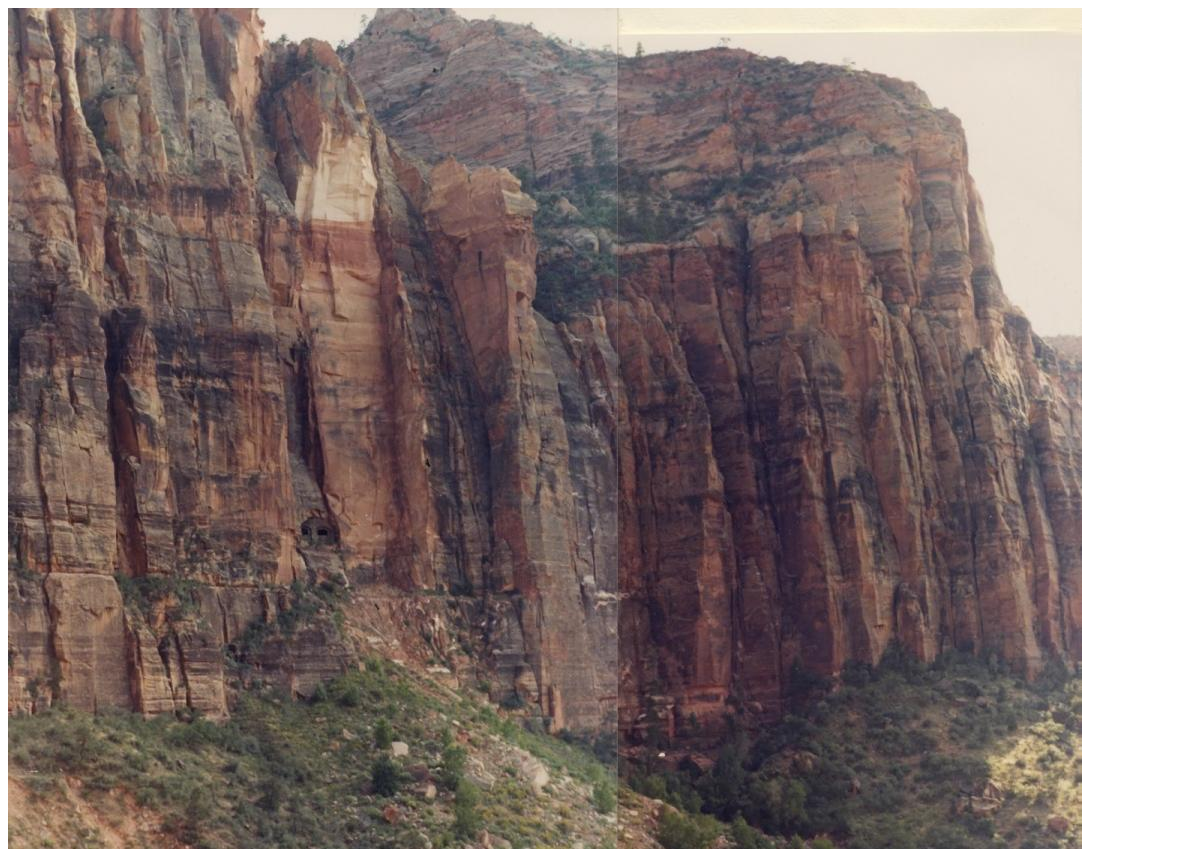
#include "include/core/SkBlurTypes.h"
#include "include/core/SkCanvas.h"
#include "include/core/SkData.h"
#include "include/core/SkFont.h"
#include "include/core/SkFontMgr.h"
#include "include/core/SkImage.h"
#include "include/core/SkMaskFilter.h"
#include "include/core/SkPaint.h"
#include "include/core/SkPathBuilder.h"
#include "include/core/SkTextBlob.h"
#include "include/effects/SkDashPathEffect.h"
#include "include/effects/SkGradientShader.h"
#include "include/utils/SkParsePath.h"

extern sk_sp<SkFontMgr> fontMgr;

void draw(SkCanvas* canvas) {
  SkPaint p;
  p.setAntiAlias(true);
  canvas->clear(SK_ColorWHITE);
  canvas->drawImageRect(SkImages::DeferredFromEncodedData(SkData::MakeFromFileName("images/1.png")), SkRect::MakeLTRB(8, 8, 1082, 849), SkSamplingOptions());
}
